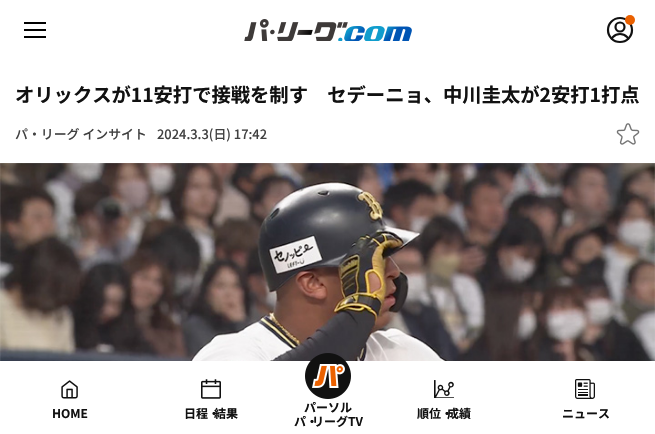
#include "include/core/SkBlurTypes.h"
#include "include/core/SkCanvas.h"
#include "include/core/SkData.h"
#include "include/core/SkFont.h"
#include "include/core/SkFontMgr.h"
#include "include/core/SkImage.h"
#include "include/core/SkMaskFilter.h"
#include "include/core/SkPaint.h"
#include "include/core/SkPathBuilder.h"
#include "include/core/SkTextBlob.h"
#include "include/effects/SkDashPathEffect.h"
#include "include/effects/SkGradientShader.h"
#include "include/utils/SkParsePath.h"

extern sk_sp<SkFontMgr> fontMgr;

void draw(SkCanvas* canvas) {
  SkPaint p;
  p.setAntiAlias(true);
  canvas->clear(SK_ColorWHITE);
  p.setColor(SK_ColorBLACK);
  canvas->drawRect(SkRect::MakeLTRB(24, 22, 46, 24), p);
  canvas->drawRect(SkRect::MakeLTRB(24, 29, 46, 31), p);
  canvas->drawRect(SkRect::MakeLTRB(24, 36, 46, 38), p);
  canvas->drawImageRect(SkImages::DeferredFromEncodedData(SkData::MakeFromFileName("images/1.png")), SkRect::MakeLTRB(244, 19, 412, 41), SkSamplingOptions());
  p.setStyle(SkPaint::kStroke_Style);
  p.setStrokeWidth(2.2f);
  p.setColor(SkColorSetRGB(17, 17, 17));
  canvas->drawCircle(620, 30, 12, p);
  canvas->drawCircle(620, 27, 4.5f, p);
  p.setStyle(SkPaint::kFill_Style);
  p.setColor(SkColorSetRGB(234, 96, 0));
  canvas->drawCircle(630, 20, 5, p);
  canvas->save();
  canvas->clipPath(SkPathBuilder().moveTo(620, 17).cubicTo(627, 17, 633, 23, 633, 30).cubicTo(633, 37, 627, 43, 620, 43).cubicTo(613, 43, 607, 37, 607, 30).cubicTo(607, 23, 613, 17, 620, 17).close().detach(), true);
  p.setStyle(SkPaint::kStroke_Style);
  p.setColor(SkColorSetRGB(17, 17, 17));
  canvas->drawCircle(620, 44, 10, p);
  canvas->restore();
  canvas->drawImageRect(SkImages::DeferredFromEncodedData(SkData::MakeFromFileName("images/2.png")), SkRect::MakeLTRB(616, 123, 640, 145), SkSamplingOptions());
  canvas->drawImageRect(SkImages::DeferredFromEncodedData(SkData::MakeFromFileName("images/3.png")), SkRect::MakeLTRB(0, 163, 655, 361), SkSamplingOptions());
  canvas->drawImageRect(SkImages::DeferredFromEncodedData(SkData::MakeFromFileName("images/4.png")), SkRect::MakeLTRB(61, 380, 78, 399), SkSamplingOptions());
  canvas->drawImageRect(SkImages::DeferredFromEncodedData(SkData::MakeFromFileName("images/5.png")), SkRect::MakeLTRB(201, 379, 221, 399), SkSamplingOptions());
  canvas->drawImageRect(SkImages::DeferredFromEncodedData(SkData::MakeFromFileName("images/6.png")), SkRect::MakeLTRB(305, 353, 351, 399), SkSamplingOptions());
  canvas->drawImageRect(SkImages::DeferredFromEncodedData(SkData::MakeFromFileName("images/7.png")), SkRect::MakeLTRB(434, 380, 454, 398), SkSamplingOptions());
  canvas->drawImageRect(SkImages::DeferredFromEncodedData(SkData::MakeFromFileName("images/8.png")), SkRect::MakeLTRB(575, 379, 595, 399), SkSamplingOptions());
  SkFont font1(fontMgr->matchFamilyStyle("Noto Sans JP", SkFontStyle::Bold()), 19.3f);
  font1.setSubpixel(true);
  p.setStyle(SkPaint::kFill_Style);
  canvas->drawString("オリックスが11安打で接戦を制す　セデーニョ、中川圭太が2安打1打点", 15, 102, font1, p);
  SkFont font2(fontMgr->matchFamilyStyle("Noto Sans JP", SkFontStyle(500, SkFontStyle::kNormal_Width, SkFontStyle::kUpright_Slant)), 12.9f);
  font2.setSubpixel(true);
  p.setColor(SkColorSetRGB(65, 65, 65));
  canvas->drawString("パ・リーグ インサイト", 15, 139, font2, p);
  canvas->drawString("2024.3.3(日) 17:42", 157, 139, font2, p);
  SkFont font3(fontMgr->matchFamilyStyle("Noto Sans JP", SkFontStyle::Bold()), 12);
  font3.setSubpixel(true);
  p.setColor(SkColorSetRGB(17, 17, 17));
  canvas->drawString("HOME", 52, 418, font3, p);
  canvas->drawString("日程・", 184, 418, font3, p);
  canvas->drawString("結果", 214, 418, font3, p);
  canvas->drawString("パーソル", 304, 412, font3, p);
  canvas->drawString("パ・", 294, 426, font3, p);
  canvas->drawString("リーグTV", 312, 426, font3, p);
  canvas->drawString("順位・", 417, 418, font3, p);
  canvas->drawString("成績", 447, 418, font3, p);
  canvas->drawString("ニュース", 562, 418, font3, p);
}
